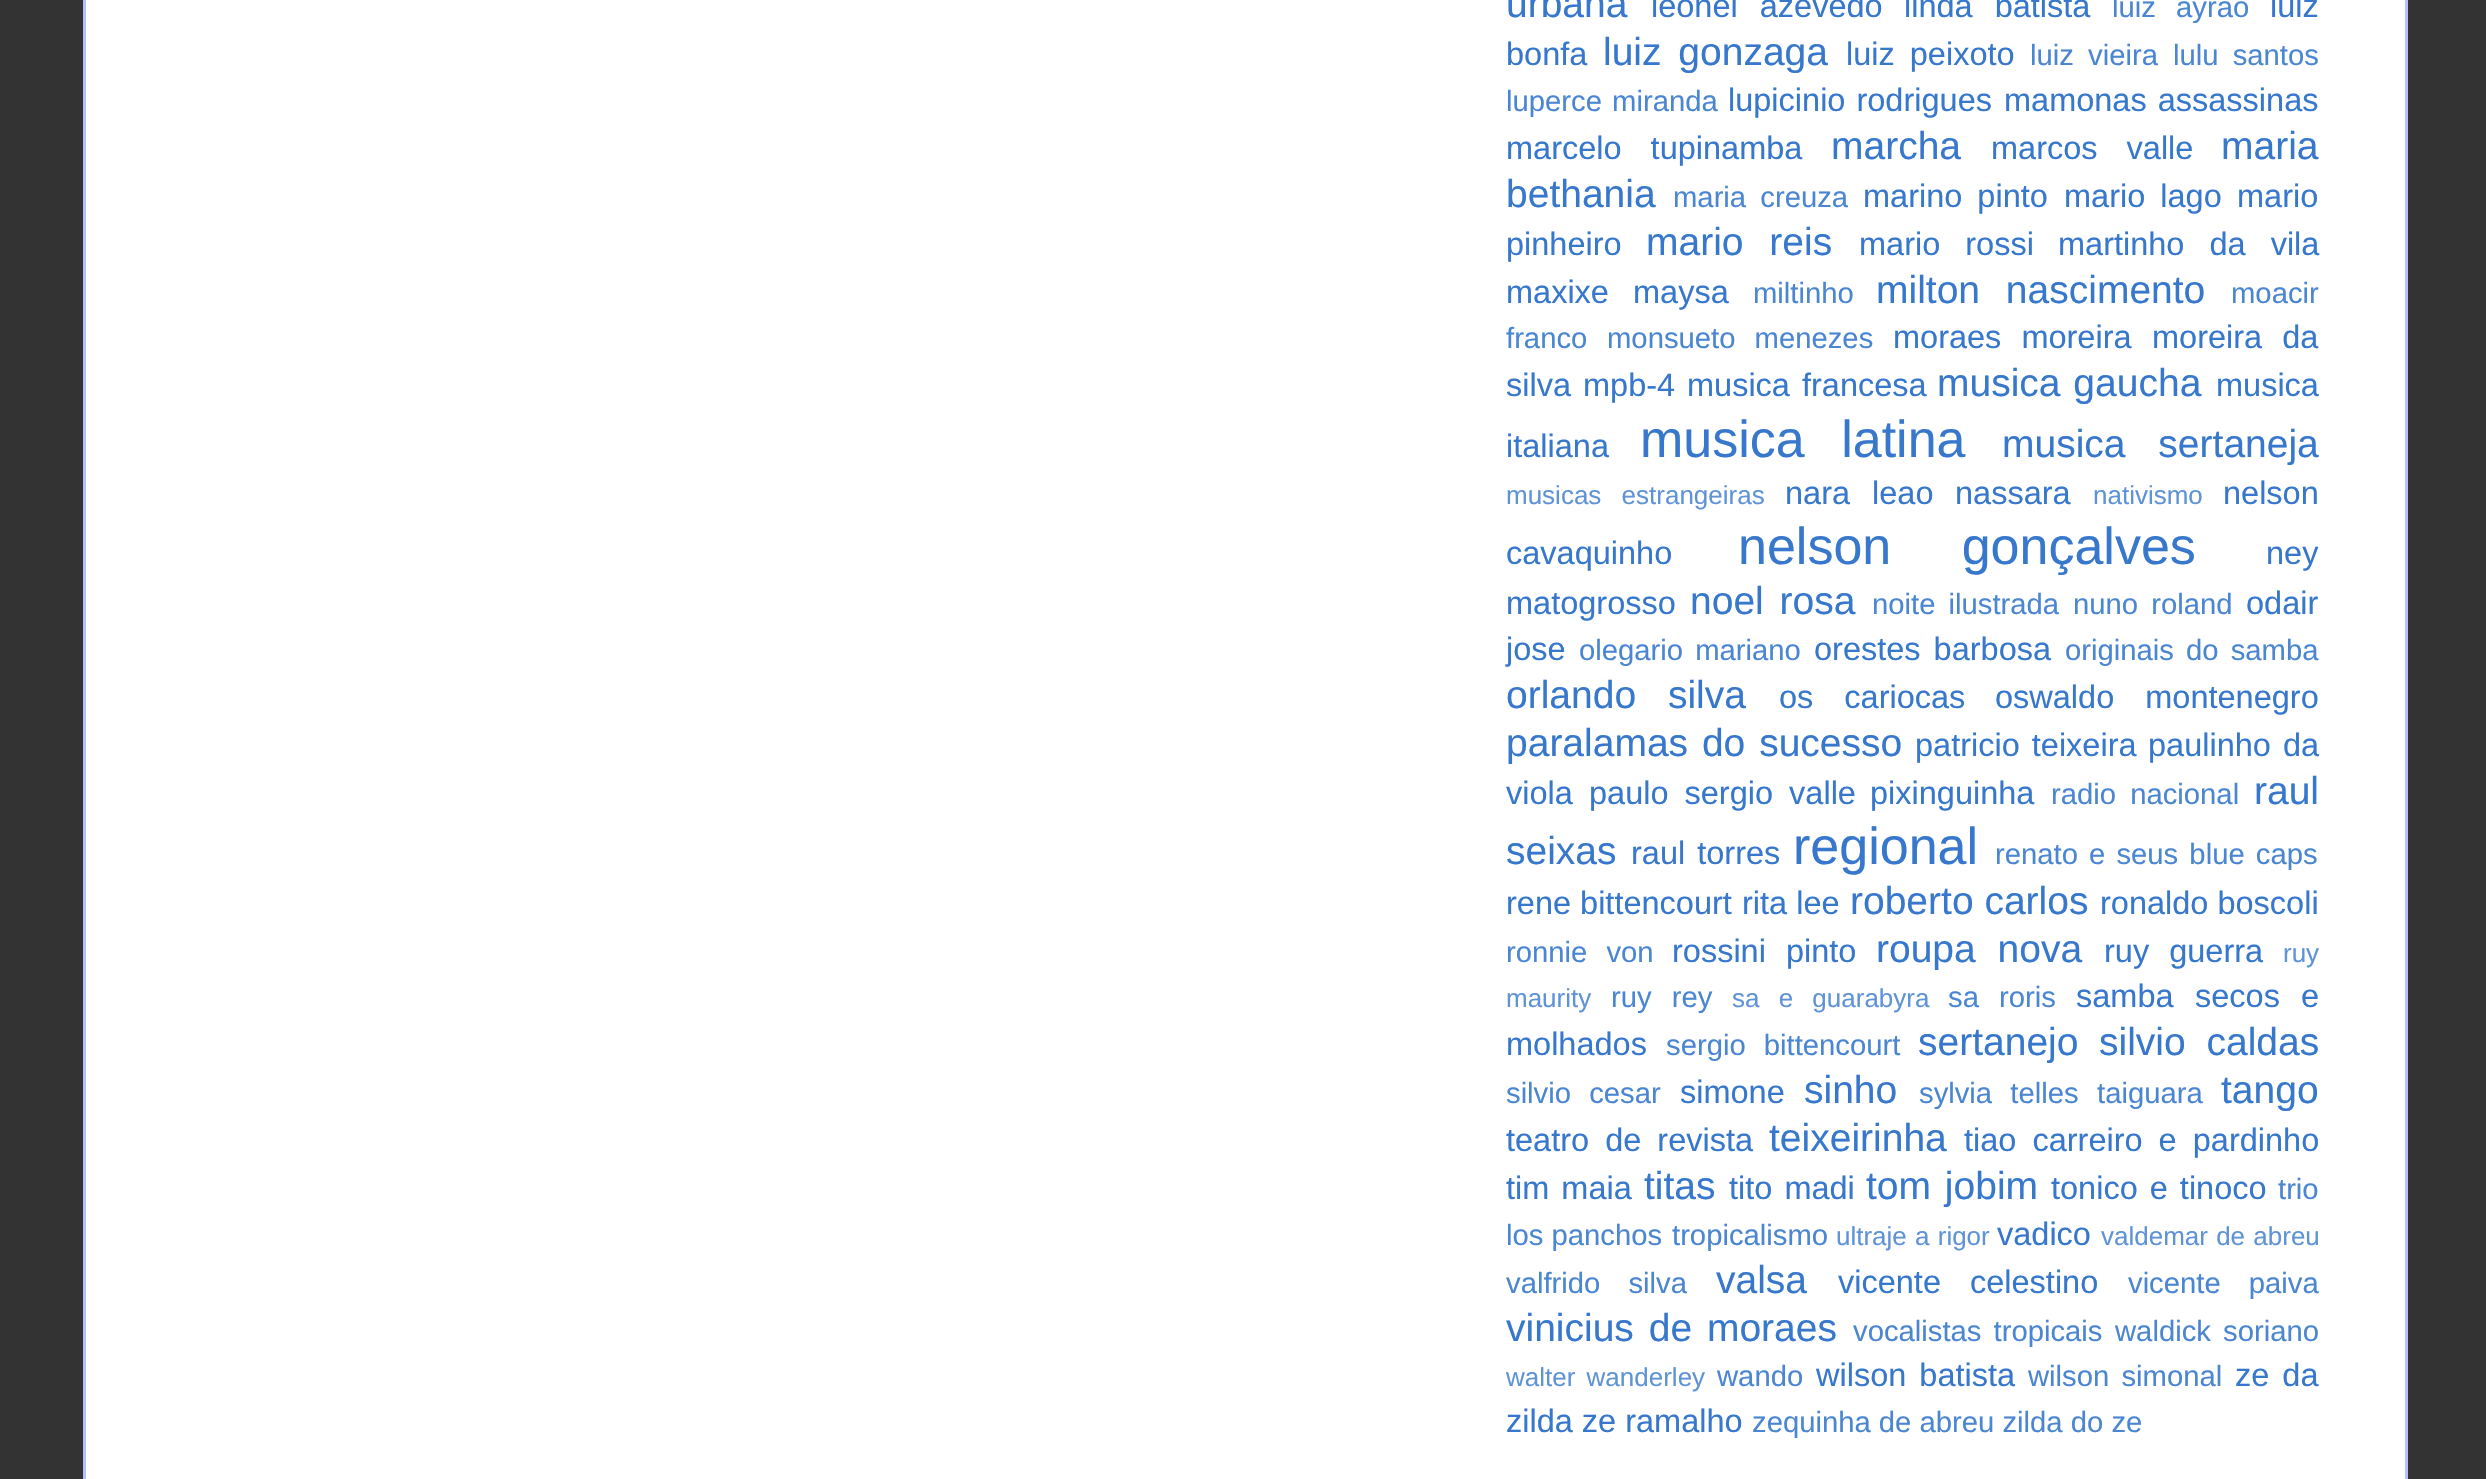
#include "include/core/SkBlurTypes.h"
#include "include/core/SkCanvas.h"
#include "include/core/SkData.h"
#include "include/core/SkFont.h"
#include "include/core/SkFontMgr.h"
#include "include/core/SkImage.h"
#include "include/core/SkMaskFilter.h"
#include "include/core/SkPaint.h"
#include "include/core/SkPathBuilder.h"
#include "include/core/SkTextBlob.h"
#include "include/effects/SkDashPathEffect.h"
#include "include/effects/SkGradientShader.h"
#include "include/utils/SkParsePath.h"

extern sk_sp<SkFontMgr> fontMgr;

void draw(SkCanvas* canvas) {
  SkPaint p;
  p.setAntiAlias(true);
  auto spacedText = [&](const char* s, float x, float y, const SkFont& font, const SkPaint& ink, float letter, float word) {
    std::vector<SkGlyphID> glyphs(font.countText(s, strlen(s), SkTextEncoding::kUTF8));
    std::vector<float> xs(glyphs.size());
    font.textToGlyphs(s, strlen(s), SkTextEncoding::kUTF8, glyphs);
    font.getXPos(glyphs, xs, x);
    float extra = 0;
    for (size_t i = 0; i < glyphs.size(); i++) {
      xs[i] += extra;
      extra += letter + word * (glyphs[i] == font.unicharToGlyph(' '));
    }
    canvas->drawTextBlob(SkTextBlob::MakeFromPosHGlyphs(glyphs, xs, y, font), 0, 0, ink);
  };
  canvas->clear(SkColorSetRGB(51, 51, 51));
  p.setColor(SK_ColorWHITE);
  canvas->drawRect(SkRect::MakeLTRB(86, 0, 2405, 1479), p);
  p.setColor(SkColorSetRGB(183, 192, 255));
  canvas->drawRect(SkRect::MakeLTRB(2405, 0, 2408, 1479), p);
  canvas->drawRect(SkRect::MakeLTRB(83, 0, 86, 1479), p);
  SkFont font1(fontMgr->matchFamilyStyle("Liberation Sans", SkFontStyle::Normal()), 39);
  font1.setSubpixel(true);
  p.setColor(SkColorSetRGB(55, 120, 205));
  canvas->drawString("urbana", 1506, 17, font1, p);
  SkFont font2(fontMgr->matchFamilyStyle("Liberation Sans", SkFontStyle::Normal()), 32.5f);
  font2.setSubpixel(true);
  spacedText("leonel azevedo", 1651, 17, font2, p, 0, 13);
  spacedText("linda batista", 1904, 17, font2, p, 0, 13);
  SkFont font3(fontMgr->matchFamilyStyle("Liberation Sans", SkFontStyle::Normal()), 29.25f);
  font3.setSubpixel(true);
  p.setColor(SkColorSetRGB(75, 134, 210));
  spacedText("luiz ayrao", 2112, 17, font3, p, 0, 12);
  p.setColor(SkColorSetRGB(55, 120, 205));
  canvas->drawString("luiz", 2270, 17, font2, p);
  canvas->drawString("bonfa", 1506, 65, font2, p);
  spacedText("luiz gonzaga", 1603, 65, font1, p, 0, 6);
  spacedText("luiz peixoto", 1846, 65, font2, p, 0, 6);
  p.setColor(SkColorSetRGB(75, 134, 210));
  spacedText("luiz vieira", 2030, 65, font3, p, 0, 6);
  spacedText("lulu santos", 2173, 65, font3, p, 0, 6);
  spacedText("luperce miranda", 1506, 111, font3, p, 0, 2);
  p.setColor(SkColorSetRGB(55, 120, 205));
  spacedText("lupicinio rodrigues", 1728, 111, font2, p, 0, 2);
  spacedText("mamonas assassinas", 2004, 111, font2, p, 0, 2);
  spacedText("marcelo tupinamba", 1506, 159, font2, p, 0, 20);
  canvas->drawString("marcha", 1831, 159, font1, p);
  spacedText("marcos valle", 1991, 159, font2, p, 0, 20);
  canvas->drawString("maria", 2221, 159, font1, p);
  canvas->drawString("bethania", 1506, 207, font1, p);
  p.setColor(SkColorSetRGB(75, 134, 210));
  spacedText("maria creuza", 1673, 207, font3, p, 0, 6);
  p.setColor(SkColorSetRGB(55, 120, 205));
  spacedText("marino pinto", 1863, 207, font2, p, 0, 6);
  spacedText("mario lago", 2064, 207, font2, p, 0, 6);
  canvas->drawString("mario", 2237, 207, font2, p);
  canvas->drawString("pinheiro", 1506, 255, font2, p);
  spacedText("mario reis", 1646, 255, font1, p, 0, 15);
  spacedText("mario rossi", 1859, 255, font2, p, 0, 16);
  spacedText("martinho da vila", 2058, 255, font2, p, 0, 16);
  canvas->drawString("maxixe", 1506, 303, font2, p);
  canvas->drawString("maysa", 1633, 303, font2, p);
  p.setColor(SkColorSetRGB(75, 134, 210));
  canvas->drawString("miltinho", 1753, 303, font3, p);
  p.setColor(SkColorSetRGB(55, 120, 205));
  spacedText("milton nascimento", 1876, 303, font1, p, 0, 15);
  p.setColor(SkColorSetRGB(75, 134, 210));
  canvas->drawString("moacir", 2231, 303, font3, p);
  canvas->drawString("franco", 1506, 348, font3, p);
  spacedText("monsueto menezes", 1607, 348, font3, p, 0, 11);
  p.setColor(SkColorSetRGB(55, 120, 205));
  spacedText("moraes moreira", 1893, 348, font2, p, 0, 11);
  spacedText("moreira da", 2152, 348, font2, p, 0, 11);
  canvas->drawString("silva", 1506, 396, font2, p);
  canvas->drawString("mpb-4", 1583, 396, font2, p);
  spacedText("musica francesa", 1687, 396, font2, p, 0, 3);
  spacedText("musica gaucha", 1937, 396, font1, p, 0, 2);
  canvas->drawString("musica", 2216, 396, font2, p);
  canvas->drawString("italiana", 1506, 457, font2, p);
  SkFont font4(fontMgr->matchFamilyStyle("Liberation Sans", SkFontStyle::Normal()), 52);
  font4.setSubpixel(true);
  spacedText("musica latina", 1640, 457, font4, p, 0, 22);
  spacedText("musica sertaneja", 2002, 457, font1, p, 0, 22);
  SkFont font5(fontMgr->matchFamilyStyle("Liberation Sans", SkFontStyle::Normal()), 26);
  font5.setSubpixel(true);
  p.setColor(SkColorSetRGB(95, 147, 215));
  spacedText("musicas estrangeiras", 1506, 504, font5, p, 0, 13);
  p.setColor(SkColorSetRGB(55, 120, 205));
  spacedText("nara leao", 1785, 504, font2, p, 0, 13);
  canvas->drawString("nassara", 1955, 504, font2, p);
  p.setColor(SkColorSetRGB(95, 147, 215));
  canvas->drawString("nativismo", 2093, 504, font5, p);
  p.setColor(SkColorSetRGB(55, 120, 205));
  canvas->drawString("nelson", 2223, 504, font2, p);
  canvas->drawString("cavaquinho", 1506, 564, font2, p);
  spacedText("nelson gonçalves", 1738, 564, font4, p, 0, 56);
  canvas->drawString("ney", 2266, 564, font2, p);
  canvas->drawString("matogrosso", 1506, 614, font2, p);
  spacedText("noel rosa", 1690, 614, font1, p, 0, 5);
  p.setColor(SkColorSetRGB(75, 134, 210));
  spacedText("noite ilustrada", 1872, 614, font3, p, 0, 5);
  spacedText("nuno roland", 2073, 614, font3, p, 0, 5);
  p.setColor(SkColorSetRGB(55, 120, 205));
  canvas->drawString("odair", 2246, 614, font2, p);
  canvas->drawString("jose", 1506, 660, font2, p);
  p.setColor(SkColorSetRGB(75, 134, 210));
  spacedText("olegario mariano", 1579, 660, font3, p, 0, 4);
  p.setColor(SkColorSetRGB(55, 120, 205));
  spacedText("orestes barbosa", 1814, 660, font2, p, 0, 4);
  p.setColor(SkColorSetRGB(75, 134, 210));
  spacedText("originais do samba", 2065, 660, font3, p, 0, 4);
  p.setColor(SkColorSetRGB(55, 120, 205));
  spacedText("orlando silva", 1506, 708, font1, p, 0, 21);
  spacedText("os cariocas", 1779, 708, font2, p, 0, 22);
  spacedText("oswaldo montenegro", 1995, 708, font2, p, 0, 22);
  spacedText("paralamas do sucesso", 1506, 756, font1, p, 0, 3);
  spacedText("patricio teixeira", 1915, 756, font2, p, 0, 3);
  spacedText("paulinho da", 2148, 756, font2, p, 0, 3);
  canvas->drawString("viola", 1506, 804, font2, p);
  spacedText("paulo sergio valle", 1589, 804, font2, p, 0, 7);
  canvas->drawString("pixinguinha", 1870, 804, font2, p);
  p.setColor(SkColorSetRGB(75, 134, 210));
  spacedText("radio nacional", 2051, 804, font3, p, 0, 6);
  p.setColor(SkColorSetRGB(55, 120, 205));
  canvas->drawString("raul", 2254, 804, font1, p);
  canvas->drawString("seixas", 1506, 864, font1, p);
  spacedText("raul torres", 1631, 864, font2, p, 0, 3);
  canvas->drawString("regional", 1793, 864, font4, p);
  p.setColor(SkColorSetRGB(75, 134, 210));
  spacedText("renato e seus blue caps", 1995, 864, font3, p, 0, 3);
  p.setColor(SkColorSetRGB(55, 120, 205));
  canvas->drawString("rene bittencourt", 1506, 914, font2, p);
  canvas->drawString("rita lee", 1742, 914, font2, p);
  canvas->drawString("roberto carlos", 1850, 914, font1, p);
  canvas->drawString("ronaldo boscoli", 2100, 914, font2, p);
  p.setColor(SkColorSetRGB(75, 134, 210));
  spacedText("ronnie von", 1506, 962, font3, p, 0, 11);
  p.setColor(SkColorSetRGB(55, 120, 205));
  spacedText("rossini pinto", 1672, 962, font2, p, 0, 11);
  spacedText("roupa nova", 1876, 962, font1, p, 0, 11);
  spacedText("ruy guerra", 2104, 962, font2, p, 0, 11);
  p.setColor(SkColorSetRGB(95, 147, 215));
  canvas->drawString("ruy", 2283, 962, font5, p);
  canvas->drawString("maurity", 1506, 1007, font5, p);
  p.setColor(SkColorSetRGB(75, 134, 210));
  spacedText("ruy rey", 1611, 1007, font3, p, 0, 12);
  p.setColor(SkColorSetRGB(95, 147, 215));
  spacedText("sa e guarabyra", 1732, 1007, font5, p, 0, 12);
  p.setColor(SkColorSetRGB(75, 134, 210));
  spacedText("sa roris", 1948, 1007, font3, p, 0, 12);
  p.setColor(SkColorSetRGB(55, 120, 205));
  canvas->drawString("samba", 2076, 1007, font2, p);
  spacedText("secos e", 2195, 1007, font2, p, 0, 12);
  canvas->drawString("molhados", 1506, 1055, font2, p);
  p.setColor(SkColorSetRGB(75, 134, 210));
  spacedText("sergio bittencourt", 1666, 1055, font3, p, 0, 10);
  p.setColor(SkColorSetRGB(55, 120, 205));
  canvas->drawString("sertanejo", 1918, 1055, font1, p);
  spacedText("silvio caldas", 2099, 1055, font1, p, 0, 10);
  p.setColor(SkColorSetRGB(75, 134, 210));
  spacedText("silvio cesar", 1506, 1103, font3, p, 0, 10);
  p.setColor(SkColorSetRGB(55, 120, 205));
  canvas->drawString("simone", 1680, 1103, font2, p);
  canvas->drawString("sinho", 1804, 1103, font1, p);
  p.setColor(SkColorSetRGB(75, 134, 210));
  spacedText("sylvia telles", 1919, 1103, font3, p, 0, 10);
  canvas->drawString("taiguara", 2097, 1103, font3, p);
  p.setColor(SkColorSetRGB(55, 120, 205));
  canvas->drawString("tango", 2221, 1103, font1, p);
  spacedText("teatro de revista", 1506, 1151, font2, p, 0, 7);
  canvas->drawString("teixeirinha", 1769, 1151, font1, p);
  spacedText("tiao carreiro e pardinho", 1964, 1151, font2, p, 0, 7);
  spacedText("tim maia", 1506, 1199, font2, p, 0, 3);
  canvas->drawString("titas", 1644, 1199, font1, p);
  spacedText("tito madi", 1729, 1199, font2, p, 0, 3);
  spacedText("tom jobim", 1866, 1199, font1, p, 0, 3);
  spacedText("tonico e tinoco", 2051, 1199, font2, p, 0, 3);
  p.setColor(SkColorSetRGB(75, 134, 210));
  canvas->drawString("trio", 2278, 1199, font3, p);
  canvas->drawString("los panchos", 1506, 1245, font3, p);
  canvas->drawString("tropicalismo", 1672, 1245, font3, p);
  p.setColor(SkColorSetRGB(95, 147, 215));
  spacedText("ultraje a rigor", 1836, 1245, font5, p, 0, 1);
  p.setColor(SkColorSetRGB(55, 120, 205));
  canvas->drawString("vadico", 1997, 1245, font2, p);
  p.setColor(SkColorSetRGB(95, 147, 215));
  spacedText("valdemar de abreu", 2101, 1245, font5, p, 0, 1);
  p.setColor(SkColorSetRGB(75, 134, 210));
  spacedText("valfrido silva", 1506, 1293, font3, p, 0, 20);
  p.setColor(SkColorSetRGB(55, 120, 205));
  canvas->drawString("valsa", 1716, 1293, font1, p);
  spacedText("vicente celestino", 1838, 1293, font2, p, 0, 20);
  p.setColor(SkColorSetRGB(75, 134, 210));
  spacedText("vicente paiva", 2128, 1293, font3, p, 0, 20);
  p.setColor(SkColorSetRGB(55, 120, 205));
  spacedText("vinicius de moraes", 1506, 1341, font1, p, 0, 4);
  p.setColor(SkColorSetRGB(75, 134, 210));
  spacedText("vocalistas tropicais", 1853, 1341, font3, p, 0, 4);
  spacedText("waldick soriano", 2115, 1341, font3, p, 0, 4);
  p.setColor(SkColorSetRGB(95, 147, 215));
  spacedText("walter wanderley", 1506, 1386, font5, p, 0, 4);
  p.setColor(SkColorSetRGB(75, 134, 210));
  canvas->drawString("wando", 1717, 1386, font3, p);
  p.setColor(SkColorSetRGB(55, 120, 205));
  spacedText("wilson batista", 1816, 1386, font2, p, 0, 4);
  p.setColor(SkColorSetRGB(75, 134, 210));
  spacedText("wilson simonal", 2028, 1386, font3, p, 0, 4);
  p.setColor(SkColorSetRGB(55, 120, 205));
  spacedText("ze da", 2235, 1386, font2, p, 0, 4);
  canvas->drawString("zilda ze ramalho", 1506, 1432, font2, p);
  p.setColor(SkColorSetRGB(75, 134, 210));
  canvas->drawString("zequinha de abreu zilda do ze", 1752, 1432, font3, p);
}
